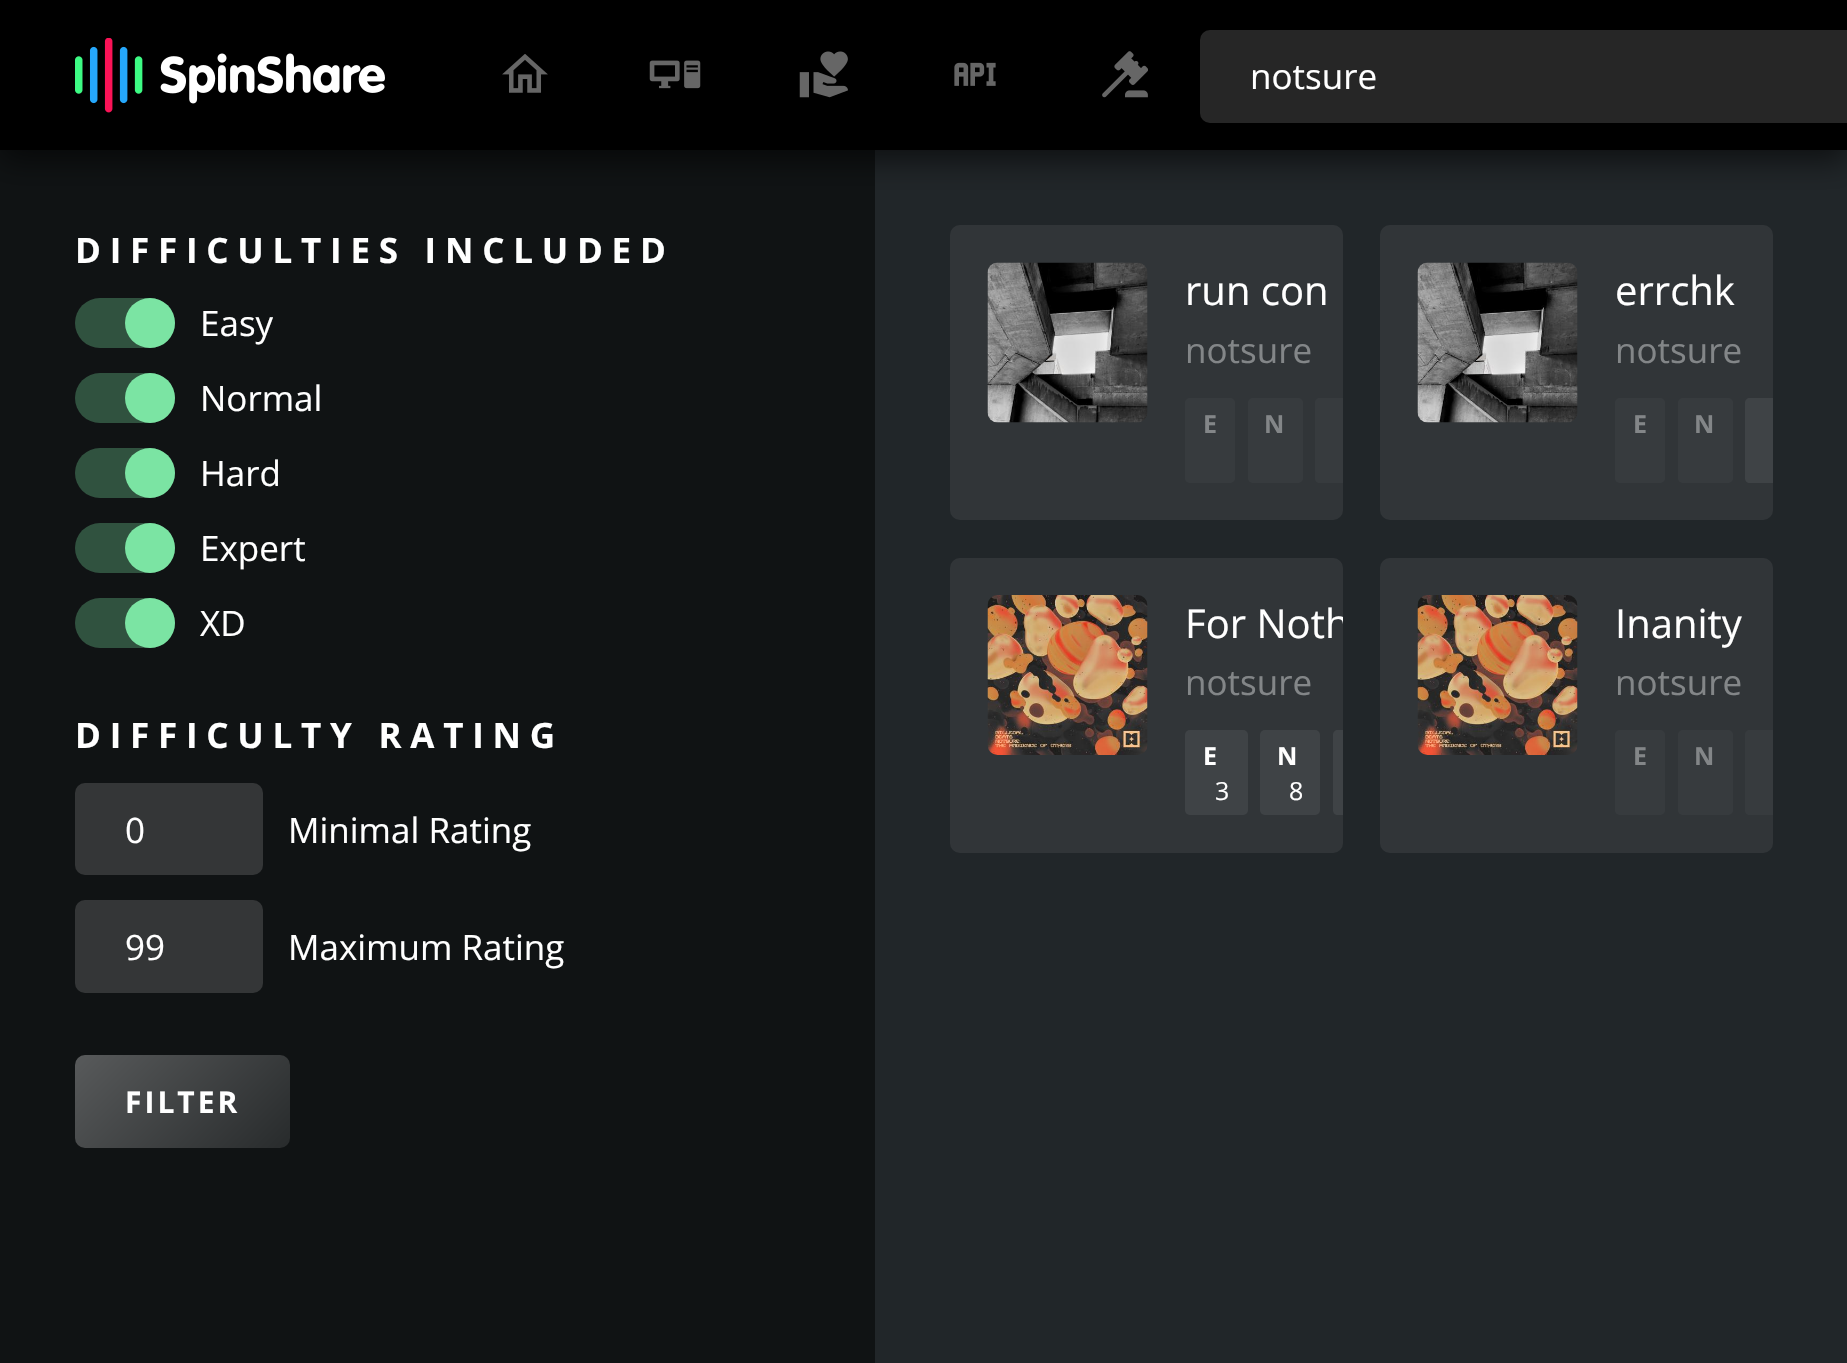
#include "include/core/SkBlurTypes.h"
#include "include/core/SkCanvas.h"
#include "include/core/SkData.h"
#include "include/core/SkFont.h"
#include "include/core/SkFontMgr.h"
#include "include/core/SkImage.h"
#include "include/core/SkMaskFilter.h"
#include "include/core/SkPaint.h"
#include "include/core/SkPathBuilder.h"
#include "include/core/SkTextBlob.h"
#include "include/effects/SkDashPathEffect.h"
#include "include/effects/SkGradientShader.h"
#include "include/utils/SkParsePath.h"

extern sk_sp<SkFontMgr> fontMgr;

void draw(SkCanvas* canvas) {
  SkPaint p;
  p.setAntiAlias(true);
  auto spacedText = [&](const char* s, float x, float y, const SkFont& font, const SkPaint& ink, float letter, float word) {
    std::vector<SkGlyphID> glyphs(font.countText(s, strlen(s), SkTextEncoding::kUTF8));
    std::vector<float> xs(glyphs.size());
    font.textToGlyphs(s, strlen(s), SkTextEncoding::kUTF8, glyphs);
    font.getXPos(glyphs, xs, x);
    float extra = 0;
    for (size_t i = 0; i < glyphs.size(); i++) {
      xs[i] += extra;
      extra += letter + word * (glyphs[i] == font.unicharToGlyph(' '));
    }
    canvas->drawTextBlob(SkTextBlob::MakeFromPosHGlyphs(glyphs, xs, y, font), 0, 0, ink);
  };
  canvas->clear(SkColorSetRGB(33, 38, 41));
  p.setColor(SkColorSetRGB(16, 19, 20));
  canvas->drawRect(SkRect::MakeLTRB(0, 150, 875, 1363), p);
  p.setColor(SkColorSetARGB(153, 0, 0, 0));
  p.setMaskFilter(SkMaskFilter::MakeBlur(kNormal_SkBlurStyle, 15));
  canvas->drawRect(SkRect::MakeLTRB(0, 10, 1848, 160), p);
  p.setMaskFilter(nullptr);
  p.setColor(SK_ColorBLACK);
  canvas->drawRect(SkRect::MakeLTRB(0, 0, 1847, 150), p);
  canvas->drawImageRect(SkImages::DeferredFromEncodedData(SkData::MakeFromFileName("images/1.png")), SkRect::MakeLTRB(75, 38, 385, 113), SkSamplingOptions());
  canvas->drawImageRect(SkImages::DeferredFromEncodedData(SkData::MakeFromFileName("images/2.png")), SkRect::MakeLTRB(502, 54, 548, 93), SkSamplingOptions());
  canvas->drawImageRect(SkImages::DeferredFromEncodedData(SkData::MakeFromFileName("images/3.png")), SkRect::MakeLTRB(649, 60, 701, 89), SkSamplingOptions());
  canvas->drawImageRect(SkImages::DeferredFromEncodedData(SkData::MakeFromFileName("images/4.png")), SkRect::MakeLTRB(799, 51, 848, 98), SkSamplingOptions());
  canvas->drawImageRect(SkImages::DeferredFromEncodedData(SkData::MakeFromFileName("images/5.png")), SkRect::MakeLTRB(954, 62, 996, 86), SkSamplingOptions());
  canvas->drawImageRect(SkImages::DeferredFromEncodedData(SkData::MakeFromFileName("images/6.png")), SkRect::MakeLTRB(1102, 51, 1148, 98), SkSamplingOptions());
  p.setColor(SkColorSetRGB(38, 38, 38));
  canvas->drawRoundRect(SkRect::MakeLTRB(1200, 30, 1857, 123), 10, 10, p);
  p.setColor(SkColorSetRGB(48, 82, 63));
  canvas->drawRoundRect(SkRect::MakeLTRB(75, 298, 175, 348), 25, 25, p);
  p.setColor(SkColorSetRGB(123, 228, 163));
  canvas->drawCircle(150, 323, 25, p);
  p.setColor(SkColorSetRGB(48, 82, 63));
  canvas->drawRoundRect(SkRect::MakeLTRB(75, 373, 175, 423), 25, 25, p);
  p.setColor(SkColorSetRGB(123, 228, 163));
  canvas->drawCircle(150, 398, 25, p);
  p.setColor(SkColorSetRGB(48, 82, 63));
  canvas->drawRoundRect(SkRect::MakeLTRB(75, 448, 175, 498), 25, 25, p);
  p.setColor(SkColorSetRGB(123, 228, 163));
  canvas->drawCircle(150, 473, 25, p);
  p.setColor(SkColorSetRGB(48, 82, 63));
  canvas->drawRoundRect(SkRect::MakeLTRB(75, 523, 175, 573), 25, 25, p);
  p.setColor(SkColorSetRGB(123, 228, 163));
  canvas->drawCircle(150, 548, 25, p);
  p.setColor(SkColorSetRGB(48, 82, 63));
  canvas->drawRoundRect(SkRect::MakeLTRB(75, 598, 175, 648), 25, 25, p);
  p.setColor(SkColorSetRGB(123, 228, 163));
  canvas->drawCircle(150, 623, 25, p);
  p.setColor(SkColorSetRGB(52, 54, 55));
  canvas->drawRoundRect(SkRect::MakeLTRB(75, 783, 263, 875), 10, 10, p);
  canvas->drawRoundRect(SkRect::MakeLTRB(75, 900, 263, 993), 10, 10, p);
  {
    const SkColor colors[] = {SkColorSetRGB(88, 90, 91), SkColorSetRGB(40, 43, 44)};
    const float stops[] = {0, 1};
    const SkPoint ends[] = {{106, 1024}, {259, 1178}};
    p.setShader(SkGradientShader::MakeLinear(ends, colors, stops, 2, SkTileMode::kClamp));
    p.setAlpha(255);
  }
  canvas->drawRoundRect(SkRect::MakeLTRB(75, 1055, 290, 1148), 10, 10, p);
  p.setShader(nullptr);
  p.setColor(SkColorSetRGB(49, 53, 56));
  canvas->drawRoundRect(SkRect::MakeLTRB(950, 225, 1343, 520), 10, 10, p);
  canvas->drawImageRect(SkImages::DeferredFromEncodedData(SkData::MakeFromFileName("images/7.png")), SkRect::MakeLTRB(987, 262, 1148, 423), SkSamplingOptions());
  p.setColor(SkColorSetRGB(55, 59, 62));
  canvas->drawRoundRect(SkRect::MakeLTRB(1185, 398, 1235, 483), 5, 5, p);
  canvas->drawRoundRect(SkRect::MakeLTRB(1248, 398, 1303, 483), 5, 5, p);
  canvas->drawPath(SkPathBuilder().moveTo(1320, 398).lineTo(1343, 398).lineTo(1343, 483).lineTo(1320, 483).cubicTo(1317, 483, 1315, 481, 1315, 478).lineTo(1315, 403).cubicTo(1315, 400, 1317, 398, 1320, 398).close().detach(), p);
  p.setColor(SkColorSetRGB(49, 53, 56));
  canvas->drawRoundRect(SkRect::MakeLTRB(1380, 225, 1773, 520), 10, 10, p);
  canvas->drawImageRect(SkImages::DeferredFromEncodedData(SkData::MakeFromFileName("images/8.png")), SkRect::MakeLTRB(1417, 262, 1578, 423), SkSamplingOptions());
  p.setColor(SkColorSetRGB(55, 59, 62));
  canvas->drawRoundRect(SkRect::MakeLTRB(1615, 398, 1665, 483), 5, 5, p);
  canvas->drawRoundRect(SkRect::MakeLTRB(1678, 398, 1733, 483), 5, 5, p);
  p.setColor(SkColorSetRGB(63, 67, 70));
  canvas->drawPath(SkPathBuilder().moveTo(1750, 398).lineTo(1773, 398).lineTo(1773, 483).lineTo(1750, 483).cubicTo(1747, 483, 1745, 481, 1745, 478).lineTo(1745, 403).cubicTo(1745, 400, 1747, 398, 1750, 398).close().detach(), p);
  p.setColor(SkColorSetRGB(49, 53, 56));
  canvas->drawRoundRect(SkRect::MakeLTRB(950, 558, 1343, 853), 10, 10, p);
  canvas->drawImageRect(SkImages::DeferredFromEncodedData(SkData::MakeFromFileName("images/9.png")), SkRect::MakeLTRB(987, 595, 1148, 755), SkSamplingOptions());
  p.setColor(SkColorSetRGB(63, 67, 70));
  canvas->drawRoundRect(SkRect::MakeLTRB(1185, 730, 1248, 815), 5, 5, p);
  canvas->drawRoundRect(SkRect::MakeLTRB(1260, 730, 1320, 815), 5, 5, p);
  canvas->drawPath(SkPathBuilder().moveTo(1338, 730).lineTo(1343, 730).lineTo(1343, 815).lineTo(1338, 815).cubicTo(1335, 815, 1333, 813, 1333, 810).lineTo(1333, 735).cubicTo(1333, 732, 1335, 730, 1338, 730).close().detach(), p);
  p.setColor(SkColorSetRGB(49, 53, 56));
  canvas->drawRoundRect(SkRect::MakeLTRB(1380, 558, 1773, 853), 10, 10, p);
  canvas->drawImageRect(SkImages::DeferredFromEncodedData(SkData::MakeFromFileName("images/10.png")), SkRect::MakeLTRB(1417, 595, 1578, 755), SkSamplingOptions());
  p.setColor(SkColorSetRGB(55, 59, 62));
  canvas->drawRoundRect(SkRect::MakeLTRB(1615, 730, 1665, 815), 5, 5, p);
  canvas->drawRoundRect(SkRect::MakeLTRB(1678, 730, 1733, 815), 5, 5, p);
  canvas->drawPath(SkPathBuilder().moveTo(1750, 730).lineTo(1773, 730).lineTo(1773, 815).lineTo(1750, 815).cubicTo(1747, 815, 1745, 813, 1745, 810).lineTo(1745, 735).cubicTo(1745, 732, 1747, 730, 1750, 730).close().detach(), p);
  SkFont font1(fontMgr->matchFamilyStyle("Open Sans", SkFontStyle::Normal()), 35);
  font1.setSubpixel(true);
  p.setColor(SK_ColorWHITE);
  canvas->drawString("notsure", 1250, 89, font1, p);
  SkFont font2(fontMgr->matchFamilyStyle("Open Sans", SkFontStyle::Bold()), 35);
  font2.setSubpixel(true);
  spacedText("DIFFICULTIES INCLUDED", 75, 263, font2, p, 8.75f, 0);
  canvas->drawString("Easy", 200, 336, font1, p);
  canvas->drawString("Normal", 200, 411, font1, p);
  canvas->drawString("Hard", 200, 486, font1, p);
  canvas->drawString("Expert", 200, 561, font1, p);
  canvas->drawString("XD", 200, 636, font1, p);
  spacedText("DIFFICULTY RATING", 75, 748, font2, p, 8.75f, 0);
  canvas->drawString("0", 125, 843, font1, p);
  canvas->drawString("Minimal Rating", 288, 843, font1, p);
  canvas->drawString("99", 125, 960, font1, p);
  canvas->drawString("Maximum Rating", 288, 960, font1, p);
  SkFont font3(fontMgr->matchFamilyStyle("Open Sans", SkFontStyle::Bold()), 30);
  font3.setSubpixel(true);
  spacedText("FILTER", 125, 1113, font3, p, 3, 0);
  SkFont font4(fontMgr->matchFamilyStyle("Open Sans", SkFontStyle::Normal()), 40);
  font4.setSubpixel(true);
  canvas->drawString("run con", 1185, 305, font4, p);
  p.setColor(SkColorSetRGB(131, 134, 136));
  canvas->drawString("notsure", 1185, 363, font1, p);
  SkFont font5(fontMgr->matchFamilyStyle("Open Sans", SkFontStyle::Bold()), 25);
  font5.setSubpixel(true);
  canvas->drawString("E", 1203, 433, font5, p);
  canvas->drawString("N", 1264, 433, font5, p);
  p.setColor(SK_ColorWHITE);
  canvas->drawString("errchk", 1615, 305, font4, p);
  p.setColor(SkColorSetRGB(131, 134, 136));
  canvas->drawString("notsure", 1615, 363, font1, p);
  canvas->drawString("E", 1633, 433, font5, p);
  canvas->drawString("N", 1694, 433, font5, p);
  canvas->save();
  canvas->clipPath(SkPathBuilder().moveTo(960, 558).lineTo(1333, 558).cubicTo(1338.5f, 558, 1343, 562.5f, 1343, 568).lineTo(1343, 843).cubicTo(1343, 848.5f, 1338.5f, 853, 1333, 853).lineTo(960, 853).cubicTo(954.5f, 853, 950, 848.5f, 950, 843).lineTo(950, 568).cubicTo(950, 562.5f, 954.5f, 558, 960, 558).close().detach(), true);
  p.setColor(SK_ColorWHITE);
  canvas->drawString("For Noth", 1185, 638, font4, p);
  canvas->restore();
  p.setColor(SkColorSetRGB(131, 134, 136));
  canvas->drawString("notsure", 1185, 695, font1, p);
  p.setColor(SK_ColorWHITE);
  canvas->drawString("E", 1203, 765, font5, p);
  SkFont font6(fontMgr->matchFamilyStyle("Open Sans", SkFontStyle::Normal()), 25);
  font6.setSubpixel(true);
  canvas->drawString("3", 1215, 800, font6, p);
  canvas->drawString("N", 1277, 765, font5, p);
  canvas->drawString("8", 1289, 800, font6, p);
  canvas->drawString("Inanity", 1615, 638, font4, p);
  p.setColor(SkColorSetRGB(131, 134, 136));
  canvas->drawString("notsure", 1615, 695, font1, p);
  canvas->drawString("E", 1633, 765, font5, p);
  canvas->drawString("N", 1694, 765, font5, p);
}
